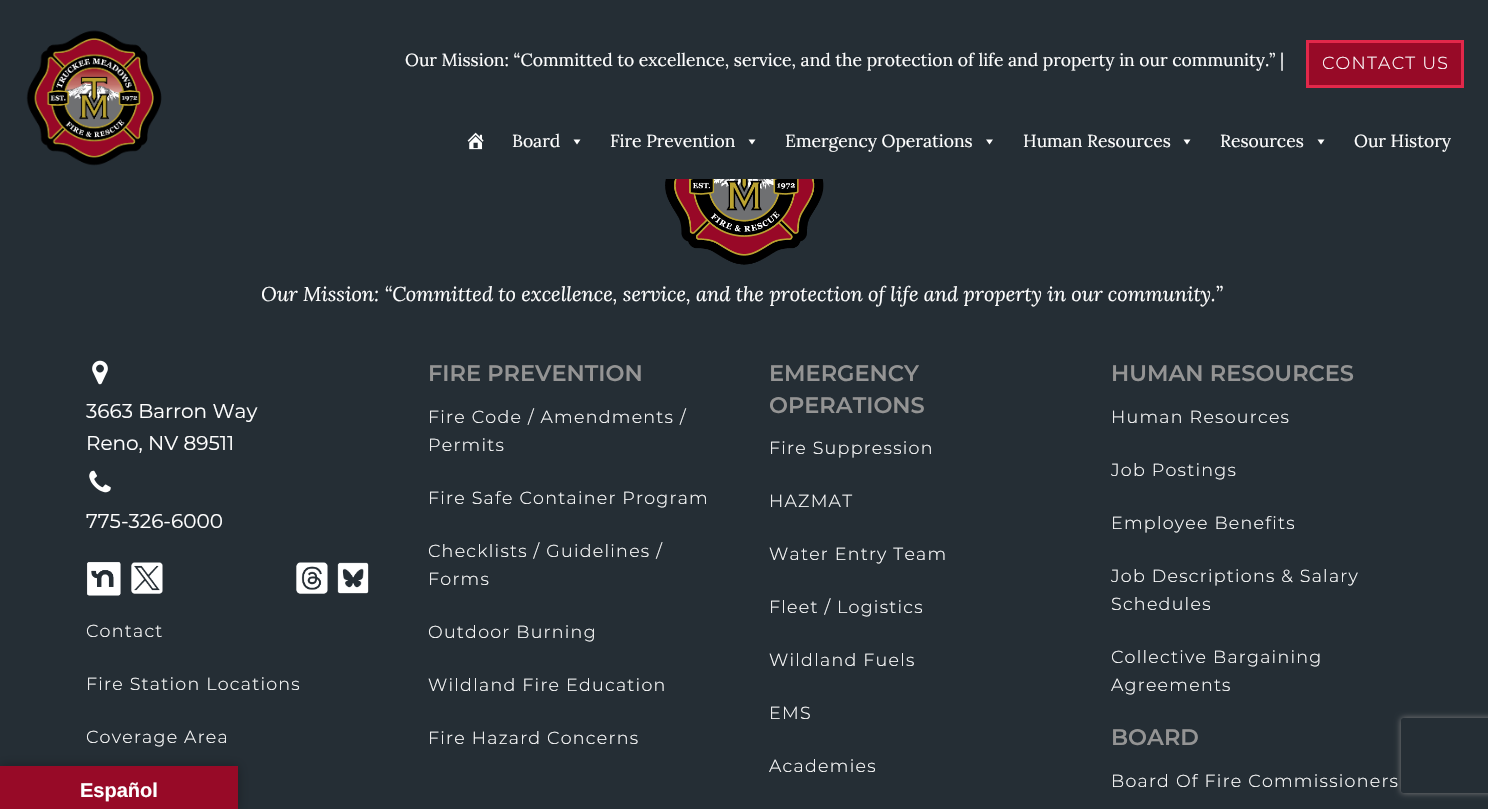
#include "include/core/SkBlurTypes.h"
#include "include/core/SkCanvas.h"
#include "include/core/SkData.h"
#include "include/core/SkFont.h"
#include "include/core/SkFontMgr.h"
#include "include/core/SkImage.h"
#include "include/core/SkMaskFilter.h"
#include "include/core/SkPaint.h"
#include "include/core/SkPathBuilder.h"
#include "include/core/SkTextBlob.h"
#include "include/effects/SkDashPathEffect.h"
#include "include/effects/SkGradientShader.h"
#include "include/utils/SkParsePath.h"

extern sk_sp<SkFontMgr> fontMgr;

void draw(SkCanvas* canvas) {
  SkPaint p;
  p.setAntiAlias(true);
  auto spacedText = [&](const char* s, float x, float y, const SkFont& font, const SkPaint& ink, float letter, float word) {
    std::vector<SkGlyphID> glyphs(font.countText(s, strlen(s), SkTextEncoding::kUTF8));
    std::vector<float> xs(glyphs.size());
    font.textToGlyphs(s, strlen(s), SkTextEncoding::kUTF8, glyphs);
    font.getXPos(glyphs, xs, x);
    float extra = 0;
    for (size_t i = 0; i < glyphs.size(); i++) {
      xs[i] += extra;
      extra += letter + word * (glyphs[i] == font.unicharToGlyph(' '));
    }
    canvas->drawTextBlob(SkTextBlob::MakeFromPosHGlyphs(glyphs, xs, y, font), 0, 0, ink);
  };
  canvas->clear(SkColorSetRGB(37, 46, 53));
  p.setColor(SkColorSetRGB(151, 10, 39));
  canvas->drawRect(SkRect::MakeLTRB(1307.5f, 41.5f, 1462.5f, 86.5f), p);
  p.setStyle(SkPaint::kStroke_Style);
  p.setStrokeWidth(3);
  p.setColor(SkColorSetRGB(226, 40, 74));
  canvas->drawRect(SkRect::MakeLTRB(1307.5f, 41.5f, 1462.5f, 86.5f), p);
  canvas->drawImageRect(SkImages::DeferredFromEncodedData(SkData::MakeFromFileName("images/1.png")), SkRect::MakeLTRB(26, 30, 162, 166), SkSamplingOptions());
  canvas->drawImageRect(SkImages::DeferredFromEncodedData(SkData::MakeFromFileName("images/2.png")), SkRect::MakeLTRB(467, 132, 484, 150), SkSamplingOptions());
  p.setStyle(SkPaint::kFill_Style);
  p.setColor(SK_ColorWHITE);
  canvas->drawPath(SkPathBuilder().moveTo(580.5f, 139.5f).lineTo(577, 144.5f).lineTo(573.5f, 139.5f).close().detach(), p);
  canvas->drawPath(SkPathBuilder().moveTo(755.5f, 139.5f).lineTo(752, 144.5f).lineTo(748.5f, 139.5f).close().detach(), p);
  canvas->drawPath(SkPathBuilder().moveTo(993, 139.5f).lineTo(989.5f, 144.5f).lineTo(986, 139.5f).close().detach(), p);
  canvas->drawPath(SkPathBuilder().moveTo(1190.5f, 139.5f).lineTo(1187, 144.5f).lineTo(1183.5f, 139.5f).close().detach(), p);
  canvas->drawPath(SkPathBuilder().moveTo(1324.5f, 139.5f).lineTo(1321, 144.5f).lineTo(1317.5f, 139.5f).close().detach(), p);
  canvas->drawImageRect(SkImages::DeferredFromEncodedData(SkData::MakeFromFileName("images/3.png")), SkRect::MakeLTRB(665, 179, 824, 265), SkSamplingOptions());
  canvas->drawImageRect(SkImages::DeferredFromEncodedData(SkData::MakeFromFileName("images/4.png")), SkRect::MakeLTRB(92, 360, 108, 385), SkSamplingOptions());
  canvas->drawImageRect(SkImages::DeferredFromEncodedData(SkData::MakeFromFileName("images/5.png")), SkRect::MakeLTRB(89, 470, 111, 493), SkSamplingOptions());
  canvas->drawImageRect(SkImages::DeferredFromEncodedData(SkData::MakeFromFileName("images/6.png")), SkRect::MakeLTRB(87, 562, 121, 596), SkSamplingOptions());
  canvas->drawImageRect(SkImages::DeferredFromEncodedData(SkData::MakeFromFileName("images/7.png")), SkRect::MakeLTRB(131, 562, 163, 594), SkSamplingOptions());
  canvas->drawImageRect(SkImages::DeferredFromEncodedData(SkData::MakeFromFileName("images/8.png")), SkRect::MakeLTRB(296, 562, 328, 594), SkSamplingOptions());
  canvas->drawImageRect(SkImages::DeferredFromEncodedData(SkData::MakeFromFileName("images/9.png")), SkRect::MakeLTRB(337, 562, 369, 594), SkSamplingOptions());
  canvas->save();
  canvas->clipPath(SkPathBuilder(SkPathFillType::kEvenOdd).moveTo(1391, 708).lineTo(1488, 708).lineTo(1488, 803).lineTo(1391, 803).close().moveTo(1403.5f, 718).lineTo(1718.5f, 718).cubicTo(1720, 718, 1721, 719, 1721, 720.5f).lineTo(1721, 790.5f).cubicTo(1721, 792, 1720, 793, 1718.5f, 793).lineTo(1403.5f, 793).cubicTo(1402, 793, 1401, 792, 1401, 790.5f).lineTo(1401, 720.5f).cubicTo(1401, 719, 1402, 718, 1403.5f, 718).close().detach(), true);
  p.setColor(SkColorSetRGB(128, 128, 128));
  p.setMaskFilter(SkMaskFilter::MakeBlur(kNormal_SkBlurStyle, 3));
  canvas->drawRoundRect(SkRect::MakeLTRB(1401, 718, 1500, 793), 2.5f, 2.5f, p);
  p.setMaskFilter(nullptr);
  canvas->restore();
  p.setColor(SkColorSetARGB(77, 0, 0, 0));
  p.setMaskFilter(SkMaskFilter::MakeBlur(kNormal_SkBlurStyle, 5.5f));
  canvas->drawRect(SkRect::MakeLTRB(0, 766, 238, 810), p);
  p.setMaskFilter(nullptr);
  p.setColor(SkColorSetRGB(151, 10, 39));
  canvas->drawRect(SkRect::MakeLTRB(0, 766, 238, 809), p);
  SkFont font1(fontMgr->matchFamilyStyle("Lora", SkFontStyle::Normal()), 17.5f);
  font1.setSubpixel(true);
  p.setColor(SK_ColorWHITE);
  canvas->drawString("Our Mission: “Committed to excellence, service, and the protection of life and property in our community.” |", 405, 66, font1, p);
  SkFont font2(fontMgr->matchFamilyStyle("Montserrat", SkFontStyle(300, SkFontStyle::kNormal_Width, SkFontStyle::kUpright_Slant)), 17.5f);
  font2.setSubpixel(true);
  spacedText("CONTACT US", 1322, 69, font2, p, 1.25f, 0);
  canvas->drawString("Board", 512, 147, font1, p);
  canvas->drawString("Fire Prevention", 610, 147, font1, p);
  canvas->drawString("Emergency Operations", 785, 147, font1, p);
  canvas->drawString("Human Resources", 1023, 147, font1, p);
  canvas->drawString("Resources", 1220, 147, font1, p);
  canvas->drawString("Our History", 1354, 147, font1, p);
  SkFont font3(fontMgr->matchFamilyStyle("Lora", SkFontStyle::Italic()), 20);
  font3.setSubpixel(true);
  canvas->drawString("Our Mission: “Committed to excellence, service, and the protection of life and property in our community.”", 261, 301, font3, p);
  SkFont font4(fontMgr->matchFamilyStyle("Montserrat", SkFontStyle::Normal()), 20);
  font4.setSubpixel(true);
  canvas->drawString("3663 Barron Way", 86, 418, font4, p);
  canvas->drawString("Reno, NV 89511", 86, 450, font4, p);
  canvas->drawString("775-326-6000", 86, 528, font4, p);
  spacedText("Contact", 86, 637, font2, p, 1.25f, 0);
  spacedText("Fire Station Locations", 86, 690, font2, p, 1.25f, 0);
  spacedText("Coverage Area", 86, 743, font2, p, 1.25f, 0);
  SkFont font5(fontMgr->matchFamilyStyle("Montserrat", SkFontStyle(600, SkFontStyle::kNormal_Width, SkFontStyle::kUpright_Slant)), 22.5f);
  font5.setSubpixel(true);
  p.setColor(SkColorSetRGB(148, 148, 148));
  canvas->drawString("FIRE PREVENTION", 428, 381, font5, p);
  p.setColor(SK_ColorWHITE);
  spacedText("Fire Code / Amendments /", 428, 423, font2, p, 1.25f, 0);
  spacedText("Permits", 428, 451, font2, p, 1.25f, 0);
  spacedText("Fire Safe Container Program", 428, 504, font2, p, 1.25f, 0);
  spacedText("Checklists / Guidelines /", 428, 557, font2, p, 1.25f, 0);
  spacedText("Forms", 428, 585, font2, p, 1.25f, 0);
  spacedText("Outdoor Burning", 428, 638, font2, p, 1.25f, 0);
  spacedText("Wildland Fire Education", 428, 691, font2, p, 1.25f, 0);
  spacedText("Fire Hazard Concerns", 428, 744, font2, p, 1.25f, 0);
  p.setColor(SkColorSetRGB(148, 148, 148));
  canvas->drawString("EMERGENCY", 769, 381, font5, p);
  canvas->drawString("OPERATIONS", 769, 413, font5, p);
  p.setColor(SK_ColorWHITE);
  spacedText("Fire Suppression", 769, 454, font2, p, 1.25f, 0);
  spacedText("HAZMAT", 769, 507, font2, p, 1.25f, 0);
  spacedText("Water Entry Team", 769, 560, font2, p, 1.25f, 0);
  spacedText("Fleet / Logistics", 769, 613, font2, p, 1.25f, 0);
  spacedText("Wildland Fuels", 769, 666, font2, p, 1.25f, 0);
  spacedText("EMS", 769, 719, font2, p, 1.25f, 0);
  spacedText("Academies", 769, 772, font2, p, 1.25f, 0);
  p.setColor(SkColorSetRGB(148, 148, 148));
  canvas->drawString("HUMAN RESOURCES", 1111, 381, font5, p);
  p.setColor(SK_ColorWHITE);
  spacedText("Human Resources", 1111, 423, font2, p, 1.25f, 0);
  spacedText("Job Postings", 1111, 476, font2, p, 1.25f, 0);
  spacedText("Employee Benefits", 1111, 529, font2, p, 1.25f, 0);
  spacedText("Job Descriptions & Salary", 1111, 582, font2, p, 1.25f, 0);
  spacedText("Schedules", 1111, 610, font2, p, 1.25f, 0);
  spacedText("Collective Bargaining", 1111, 663, font2, p, 1.25f, 0);
  spacedText("Agreements", 1111, 691, font2, p, 1.25f, 0);
  p.setColor(SkColorSetRGB(148, 148, 148));
  canvas->drawString("BOARD", 1111, 745, font5, p);
  p.setColor(SK_ColorWHITE);
  spacedText("Board Of Fire Commissioners", 1111, 787, font2, p, 1.25f, 0);
  SkFont font6(fontMgr->matchFamilyStyle("Liberation Sans", SkFontStyle::Bold()), 20);
  font6.setSubpixel(true);
  canvas->drawString("Español", 80, 797, font6, p);
}
